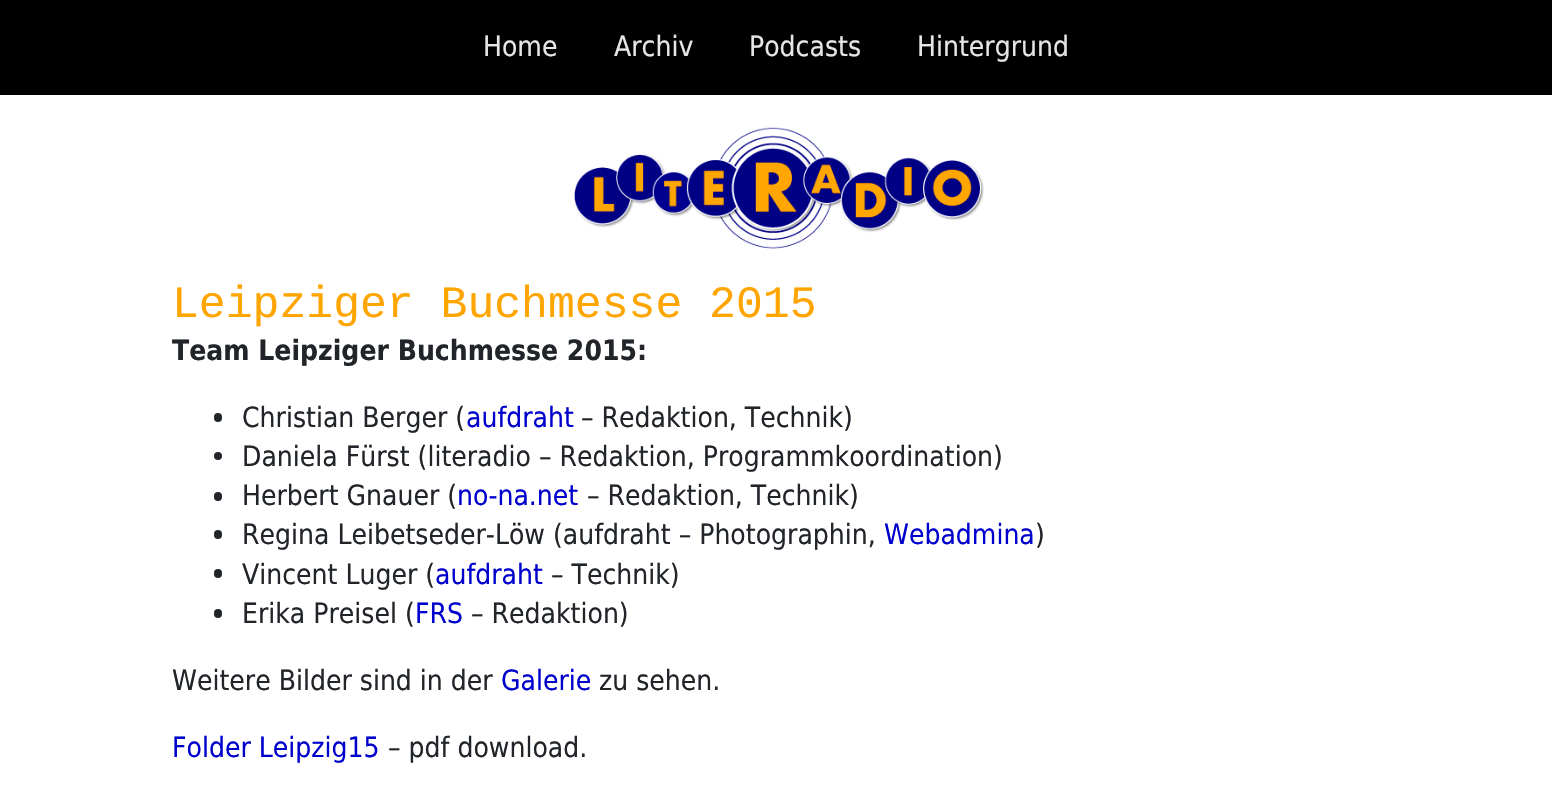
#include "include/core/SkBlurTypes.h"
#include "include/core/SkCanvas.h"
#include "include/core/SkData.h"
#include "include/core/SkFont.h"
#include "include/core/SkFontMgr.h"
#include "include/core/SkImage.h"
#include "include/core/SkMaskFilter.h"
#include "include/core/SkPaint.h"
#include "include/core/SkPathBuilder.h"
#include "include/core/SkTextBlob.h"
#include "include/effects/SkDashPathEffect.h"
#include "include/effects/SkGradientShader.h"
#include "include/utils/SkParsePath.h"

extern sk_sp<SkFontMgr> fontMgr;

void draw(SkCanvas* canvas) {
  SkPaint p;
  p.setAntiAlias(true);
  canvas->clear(SK_ColorWHITE);
  p.setColor(SK_ColorBLACK);
  canvas->drawRect(SkRect::MakeLTRB(0, 0, 1552, 95), p);
  canvas->drawImageRect(SkImages::DeferredFromEncodedData(SkData::MakeFromFileName("images/1.png")), SkRect::MakeLTRB(574, 127, 984, 249), SkSamplingOptions());
  p.setColor(SkColorSetRGB(33, 37, 41));
  canvas->drawRoundRect(SkRect::MakeLTRB(214, 413, 222, 422), 4, 4, p);
  canvas->drawCircle(218, 456, 4, p);
  canvas->drawRoundRect(SkRect::MakeLTRB(214, 492, 222, 501), 4, 4, p);
  canvas->drawRoundRect(SkRect::MakeLTRB(214, 530, 222, 539), 4, 4, p);
  canvas->drawRoundRect(SkRect::MakeLTRB(214, 569, 222, 578), 4, 4, p);
  canvas->drawRoundRect(SkRect::MakeLTRB(214, 609, 222, 618), 4, 4, p);
  SkFont font1(fontMgr->matchFamilyStyle("DejaVu Sans", SkFontStyle::Normal()), 28);
  font1.setSubpixel(true);
  p.setColor(SkColorSetRGB(230, 230, 230));
  canvas->drawString("Home", 483, 56, font1, p);
  canvas->drawString("Archiv", 614, 56, font1, p);
  canvas->drawString("Podcasts", 749, 56, font1, p);
  canvas->drawString("Hintergrund", 917, 56, font1, p);
  SkFont font2(fontMgr->matchFamilyStyle("Liberation Mono", SkFontStyle::Normal()), 44.75f);
  font2.setSubpixel(true);
  p.setColor(SkColorSetRGB(255, 165, 0));
  canvas->drawString("Leipziger Buchmesse 2015", 172, 317, font2, p);
  SkFont font3(fontMgr->matchFamilyStyle("DejaVu Sans", SkFontStyle::Bold()), 28);
  font3.setSubpixel(true);
  p.setColor(SkColorSetRGB(33, 37, 41));
  canvas->drawString("Team Leipziger Buchmesse 2015:", 172, 360, font3, p);
  canvas->drawString("Christian Berger (", 242, 427, font1, p);
  p.setColor(SkColorSetRGB(0, 0, 205));
  canvas->drawString("aufdraht", 466, 427, font1, p);
  p.setColor(SkColorSetRGB(33, 37, 41));
  canvas->drawString("– Redaktion, Technik)", 581, 427, font1, p);
  canvas->drawString("Daniela Fürst (literadio – Redaktion, Programmkoordination)", 242, 466, font1, p);
  canvas->drawString("Herbert Gnauer (", 242, 505, font1, p);
  p.setColor(SkColorSetRGB(0, 0, 205));
  canvas->drawString("no-na.net", 457, 505, font1, p);
  p.setColor(SkColorSetRGB(33, 37, 41));
  canvas->drawString("– Redaktion, Technik)", 587, 505, font1, p);
  canvas->drawString("Regina Leibetseder-Löw (aufdraht – Photographin,", 242, 544, font1, p);
  p.setColor(SkColorSetRGB(0, 0, 205));
  canvas->drawString("Webadmina", 884, 544, font1, p);
  p.setColor(SkColorSetRGB(33, 37, 41));
  canvas->drawString(")", 1035, 544, font1, p);
  canvas->drawString("Vincent Luger (", 242, 584, font1, p);
  p.setColor(SkColorSetRGB(0, 0, 205));
  canvas->drawString("aufdraht", 435, 584, font1, p);
  p.setColor(SkColorSetRGB(33, 37, 41));
  canvas->drawString("– Technik)", 551, 584, font1, p);
  canvas->drawString("Erika Preisel (", 242, 623, font1, p);
  p.setColor(SkColorSetRGB(0, 0, 205));
  canvas->drawString("FRS", 415, 623, font1, p);
  p.setColor(SkColorSetRGB(33, 37, 41));
  canvas->drawString("– Redaktion)", 471, 623, font1, p);
  canvas->drawString("Weitere Bilder sind in der", 172, 690, font1, p);
  p.setColor(SkColorSetRGB(0, 0, 205));
  canvas->drawString("Galerie", 501, 690, font1, p);
  p.setColor(SkColorSetRGB(33, 37, 41));
  canvas->drawString("zu sehen.", 599, 690, font1, p);
  p.setColor(SkColorSetRGB(0, 0, 205));
  canvas->drawString("Folder Leipzig15", 172, 757, font1, p);
  p.setColor(SkColorSetRGB(33, 37, 41));
  canvas->drawString("– pdf download.", 388, 757, font1, p);
}
